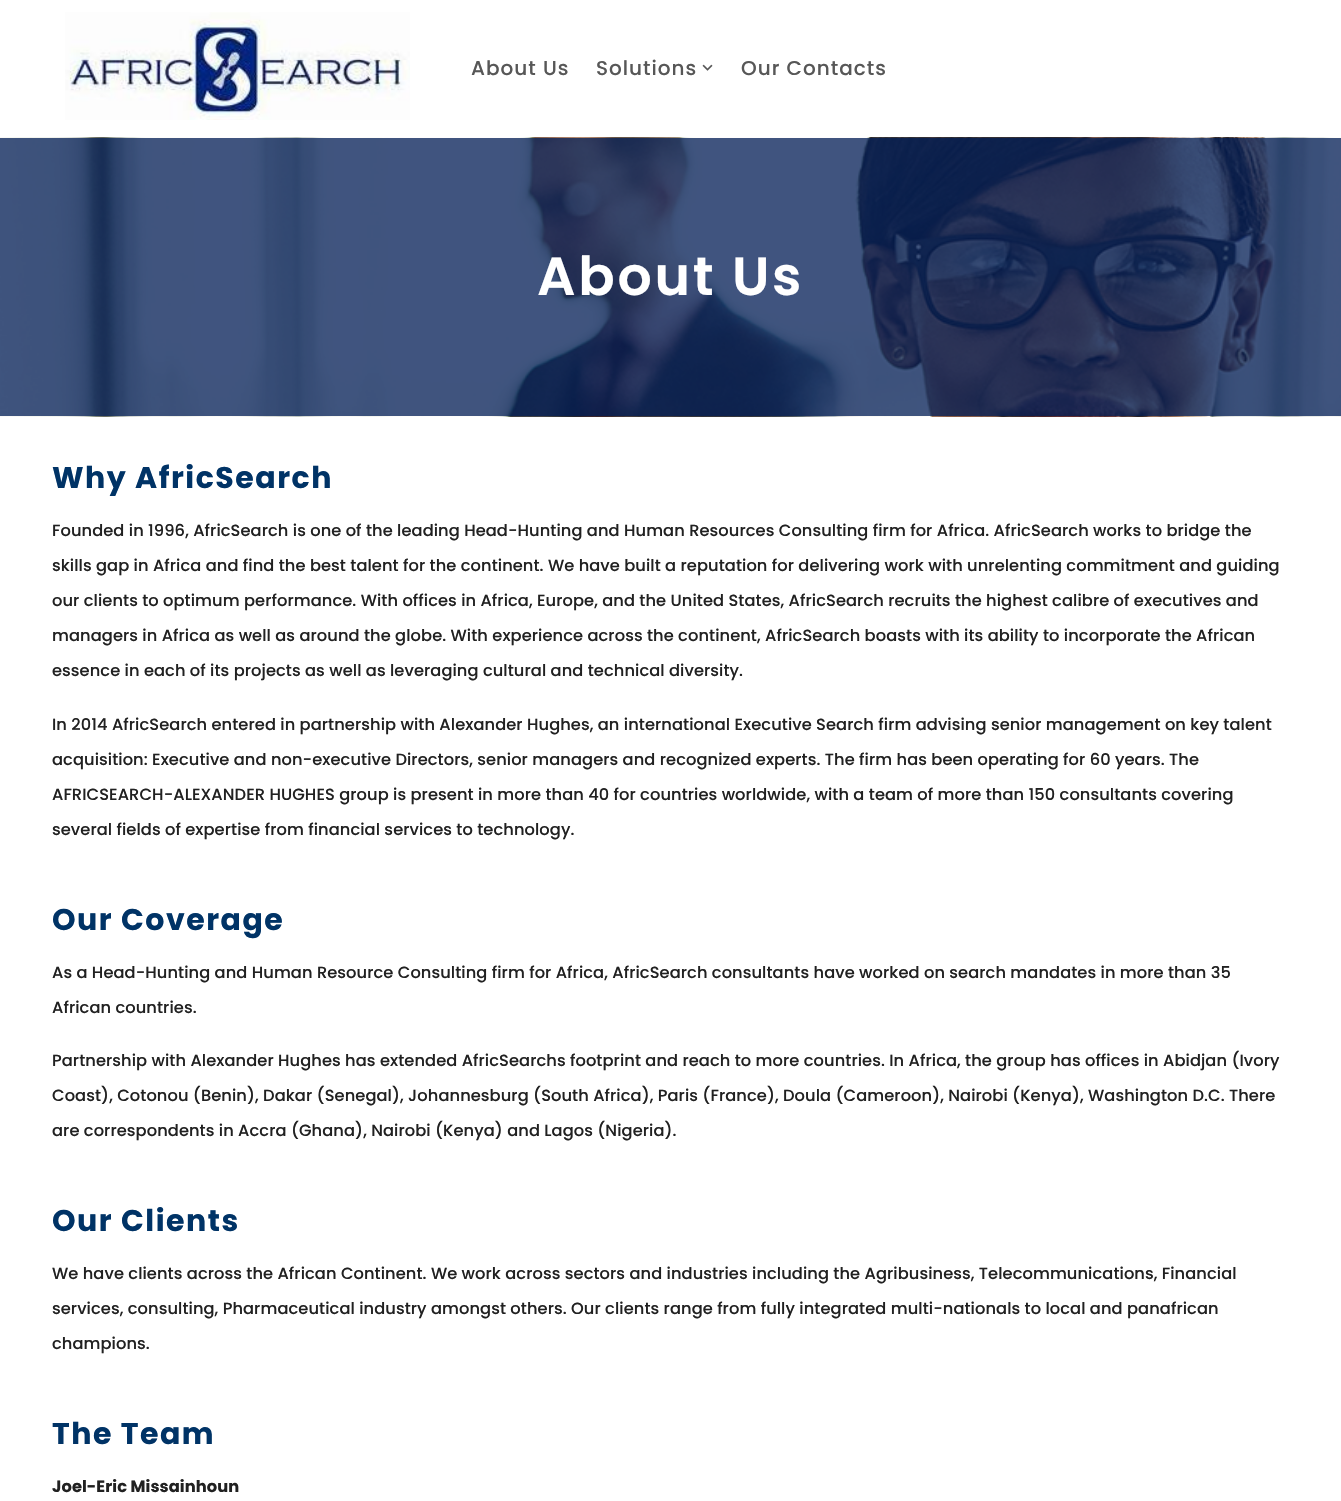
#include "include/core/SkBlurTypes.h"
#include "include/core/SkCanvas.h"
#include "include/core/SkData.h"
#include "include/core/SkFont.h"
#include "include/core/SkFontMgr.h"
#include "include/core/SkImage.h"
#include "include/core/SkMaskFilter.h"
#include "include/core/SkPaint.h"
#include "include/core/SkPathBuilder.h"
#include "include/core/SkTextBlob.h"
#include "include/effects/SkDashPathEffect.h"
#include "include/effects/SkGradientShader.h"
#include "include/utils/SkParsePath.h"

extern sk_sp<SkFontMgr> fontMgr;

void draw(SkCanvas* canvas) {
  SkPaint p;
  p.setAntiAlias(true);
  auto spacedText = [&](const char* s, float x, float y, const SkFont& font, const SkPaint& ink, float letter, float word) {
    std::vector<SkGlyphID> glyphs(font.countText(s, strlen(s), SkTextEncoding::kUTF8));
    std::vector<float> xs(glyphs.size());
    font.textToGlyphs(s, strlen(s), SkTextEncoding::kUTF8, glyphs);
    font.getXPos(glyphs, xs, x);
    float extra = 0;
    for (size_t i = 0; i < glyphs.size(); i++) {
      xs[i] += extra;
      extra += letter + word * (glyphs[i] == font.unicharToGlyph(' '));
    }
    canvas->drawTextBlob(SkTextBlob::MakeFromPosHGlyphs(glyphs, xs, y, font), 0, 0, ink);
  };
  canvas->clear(SK_ColorWHITE);
  canvas->drawImageRect(SkImages::DeferredFromEncodedData(SkData::MakeFromFileName("images/1.png")), SkRect::MakeLTRB(65, 12, 410, 120), SkSamplingOptions());
  canvas->drawImageRect(SkImages::DeferredFromEncodedData(SkData::MakeFromFileName("images/2.png")), SkRect::MakeLTRB(702, 64, 713, 71), SkSamplingOptions());
  canvas->drawImageRect(SkImages::DeferredFromEncodedData(SkData::MakeFromFileName("images/3.png")), SkRect::MakeLTRB(0, 137, 1341, 417), SkSamplingOptions());
  SkFont font1(fontMgr->matchFamilyStyle("Poppins", SkFontStyle(500, SkFontStyle::kNormal_Width, SkFontStyle::kUpright_Slant)), 20);
  font1.setSubpixel(true);
  p.setColor(SkColorSetRGB(87, 87, 87));
  spacedText("About Us", 471, 75, font1, p, 1, 0);
  spacedText("Solutions", 596, 75, font1, p, 1, 0);
  spacedText("Our Contacts", 741, 75, font1, p, 1, 0);
  SkFont font2(fontMgr->matchFamilyStyle("Poppins", SkFontStyle(600, SkFontStyle::kNormal_Width, SkFontStyle::kUpright_Slant)), 53.75f);
  font2.setSubpixel(true);
  p.setColor(SK_ColorWHITE);
  spacedText("About Us", 537, 295, font2, p, 2.75f, 0);
  SkFont font3(fontMgr->matchFamilyStyle("Poppins", SkFontStyle::Bold()), 30);
  font3.setSubpixel(true);
  p.setColor(SkColorSetRGB(0, 51, 102));
  spacedText("Why AfricSearch", 52, 488, font3, p, 1.5f, 0);
  SkFont font4(fontMgr->matchFamilyStyle("Poppins", SkFontStyle(500, SkFontStyle::kNormal_Width, SkFontStyle::kUpright_Slant)), 16.25f);
  font4.setSubpixel(true);
  p.setColor(SkColorSetRGB(33, 33, 33));
  spacedText("Founded in 1996, AfricSearch is one of the leading Head-Hunting and Human Resources Consulting firm for Africa. AfricSearch works to bridge the", 52, 536, font4, p, 0.08f, 0);
  spacedText("skills gap in Africa and find the best talent for the continent. We have built a reputation for delivering work with unrelenting commitment and guiding", 52, 571, font4, p, 0.08f, 0);
  spacedText("our clients to optimum performance. With offices in Africa, Europe, and the United States, AfricSearch recruits the highest calibre of executives and", 52, 606, font4, p, 0.08f, 0);
  spacedText("managers in Africa as well as around the globe. With experience across the continent, AfricSearch boasts with its ability to incorporate the African", 52, 641, font4, p, 0.08f, 0);
  spacedText("essence in each of its projects as well as leveraging cultural and technical diversity.", 52, 676, font4, p, 0.08f, 0);
  spacedText("In 2014 AfricSearch entered in partnership with Alexander Hughes, an international Executive Search firm advising senior management on key talent", 52, 730, font4, p, 0.08f, 0);
  spacedText("acquisition: Executive and non-executive Directors, senior managers and recognized experts. The firm has been operating for 60 years. The", 52, 765, font4, p, 0.08f, 0);
  spacedText("AFRICSEARCH-ALEXANDER HUGHES group is present in more than 40 for countries worldwide, with a team of more than 150 consultants covering", 52, 800, font4, p, 0.08f, 0);
  spacedText("several fields of expertise from financial services to technology.", 52, 835, font4, p, 0.08f, 0);
  p.setColor(SkColorSetRGB(0, 51, 102));
  spacedText("Our Coverage", 52, 930, font3, p, 1.5f, 0);
  p.setColor(SkColorSetRGB(33, 33, 33));
  spacedText("As a Head-Hunting and Human Resource Consulting firm for Africa, AfricSearch consultants have worked on search mandates in more than 35", 52, 978, font4, p, 0.08f, 0);
  spacedText("African countries.", 52, 1013, font4, p, 0.08f, 0);
  spacedText("Partnership with Alexander Hughes has extended AfricSearchs footprint and reach to more countries. In Africa, the group has offices in Abidjan (Ivory", 52, 1066, font4, p, 0.08f, 0);
  spacedText("Coast), Cotonou (Benin), Dakar (Senegal), Johannesburg (South Africa), Paris (France), Doula (Cameroon), Nairobi (Kenya), Washington D.C. There", 52, 1101, font4, p, 0.08f, 0);
  spacedText("are correspondents in Accra (Ghana), Nairobi (Kenya) and Lagos (Nigeria).", 52, 1136, font4, p, 0.08f, 0);
  p.setColor(SkColorSetRGB(0, 51, 102));
  spacedText("Our Clients", 52, 1231, font3, p, 1.5f, 0);
  p.setColor(SkColorSetRGB(33, 33, 33));
  spacedText("We have clients across the African Continent. We work across sectors and industries including the Agribusiness, Telecommunications, Financial", 52, 1279, font4, p, 0.08f, 0);
  spacedText("services, consulting, Pharmaceutical industry amongst others. Our clients range from fully integrated multi-nationals to local and panafrican", 52, 1314, font4, p, 0.08f, 0);
  spacedText("champions.", 52, 1349, font4, p, 0.08f, 0);
  p.setColor(SkColorSetRGB(0, 51, 102));
  spacedText("The Team", 52, 1444, font3, p, 1.5f, 0);
  SkFont font5(fontMgr->matchFamilyStyle("Poppins", SkFontStyle::Bold()), 16.25f);
  font5.setSubpixel(true);
  p.setColor(SkColorSetRGB(33, 33, 33));
  spacedText("Joel-Eric Missainhoun", 52, 1492, font5, p, 0.08f, 0);
}
